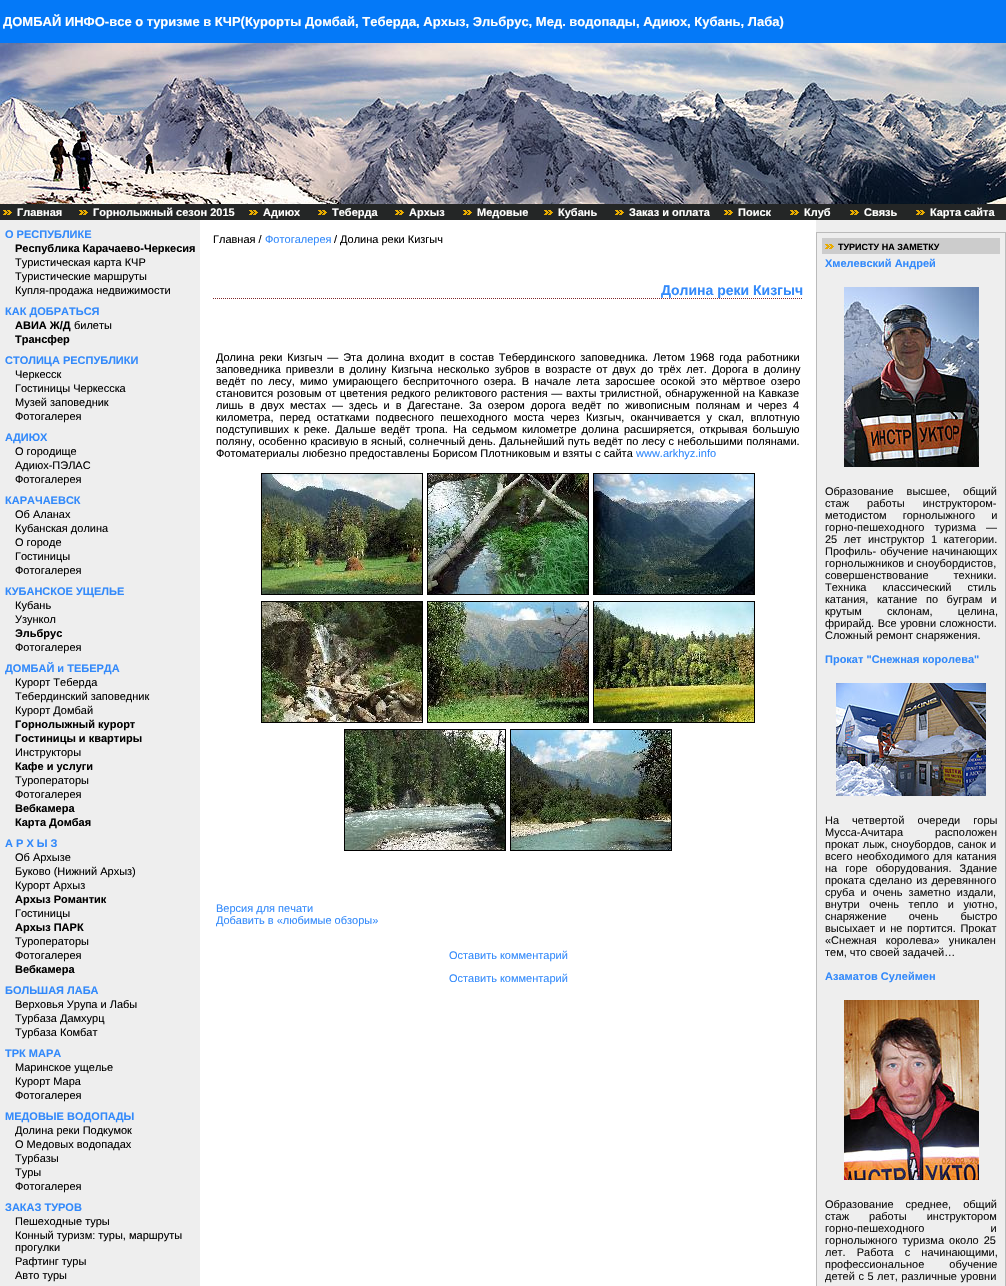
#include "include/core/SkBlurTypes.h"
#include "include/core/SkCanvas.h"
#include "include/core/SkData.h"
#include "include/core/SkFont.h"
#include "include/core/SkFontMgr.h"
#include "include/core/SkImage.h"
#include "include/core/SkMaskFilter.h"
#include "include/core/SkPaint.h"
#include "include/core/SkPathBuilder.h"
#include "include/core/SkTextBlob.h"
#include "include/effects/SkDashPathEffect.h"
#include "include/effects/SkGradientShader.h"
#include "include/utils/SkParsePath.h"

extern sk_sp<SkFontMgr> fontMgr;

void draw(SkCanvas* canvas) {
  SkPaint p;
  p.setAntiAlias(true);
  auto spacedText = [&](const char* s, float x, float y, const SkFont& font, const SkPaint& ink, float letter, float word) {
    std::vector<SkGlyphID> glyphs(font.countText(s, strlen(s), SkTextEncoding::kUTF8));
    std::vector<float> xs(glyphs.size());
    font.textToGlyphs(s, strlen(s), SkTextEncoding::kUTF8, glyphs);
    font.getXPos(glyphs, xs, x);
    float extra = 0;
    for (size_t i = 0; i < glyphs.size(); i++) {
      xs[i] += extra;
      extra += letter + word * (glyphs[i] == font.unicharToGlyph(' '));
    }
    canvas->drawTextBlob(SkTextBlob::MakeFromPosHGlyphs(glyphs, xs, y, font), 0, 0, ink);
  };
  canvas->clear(SK_ColorWHITE);
  p.setColor(SkColorSetRGB(4, 121, 248));
  canvas->drawRect(SkRect::MakeLTRB(0, 0, 1006, 43), p);
  canvas->drawImageRect(SkImages::DeferredFromEncodedData(SkData::MakeFromFileName("images/1.png")), SkRect::MakeLTRB(0, 43, 1006, 204), SkSamplingOptions());
  p.setColor(SkColorSetRGB(36, 38, 38));
  canvas->drawRect(SkRect::MakeLTRB(0, 204, 1006, 220), p);
  canvas->drawImageRect(SkImages::DeferredFromEncodedData(SkData::MakeFromFileName("images/2.png")), SkRect::MakeLTRB(3, 210, 12, 215), SkSamplingOptions());
  canvas->drawImageRect(SkImages::DeferredFromEncodedData(SkData::MakeFromFileName("images/2.png")), SkRect::MakeLTRB(79, 210, 88, 215), SkSamplingOptions());
  canvas->drawImageRect(SkImages::DeferredFromEncodedData(SkData::MakeFromFileName("images/2.png")), SkRect::MakeLTRB(249, 210, 258, 215), SkSamplingOptions());
  canvas->drawImageRect(SkImages::DeferredFromEncodedData(SkData::MakeFromFileName("images/2.png")), SkRect::MakeLTRB(318, 210, 327, 215), SkSamplingOptions());
  canvas->drawImageRect(SkImages::DeferredFromEncodedData(SkData::MakeFromFileName("images/2.png")), SkRect::MakeLTRB(395, 210, 404, 215), SkSamplingOptions());
  canvas->drawImageRect(SkImages::DeferredFromEncodedData(SkData::MakeFromFileName("images/2.png")), SkRect::MakeLTRB(463, 210, 472, 215), SkSamplingOptions());
  canvas->drawImageRect(SkImages::DeferredFromEncodedData(SkData::MakeFromFileName("images/2.png")), SkRect::MakeLTRB(544, 210, 553, 215), SkSamplingOptions());
  canvas->drawImageRect(SkImages::DeferredFromEncodedData(SkData::MakeFromFileName("images/2.png")), SkRect::MakeLTRB(615, 210, 624, 215), SkSamplingOptions());
  canvas->drawImageRect(SkImages::DeferredFromEncodedData(SkData::MakeFromFileName("images/2.png")), SkRect::MakeLTRB(724, 210, 733, 215), SkSamplingOptions());
  canvas->drawImageRect(SkImages::DeferredFromEncodedData(SkData::MakeFromFileName("images/2.png")), SkRect::MakeLTRB(790, 210, 799, 215), SkSamplingOptions());
  canvas->drawImageRect(SkImages::DeferredFromEncodedData(SkData::MakeFromFileName("images/2.png")), SkRect::MakeLTRB(850, 210, 859, 215), SkSamplingOptions());
  canvas->drawImageRect(SkImages::DeferredFromEncodedData(SkData::MakeFromFileName("images/2.png")), SkRect::MakeLTRB(916, 210, 925, 215), SkSamplingOptions());
  p.setColor(SkColorSetRGB(238, 238, 238));
  canvas->drawRect(SkRect::MakeLTRB(0, 220, 200, 1286), p);
  p.setStyle(SkPaint::kStroke_Style);
  p.setStrokeWidth(1);
  p.setColor(SkColorSetRGB(129, 40, 42));
  p.setPathEffect(SkDashPathEffect::Make({{1, 1}}, 0));
  canvas->drawPath(SkPathBuilder().moveTo(213, 298.5f).lineTo(803, 298.5f).detach(), p);
  p.setPathEffect(nullptr);
  p.setColor(SK_ColorBLACK);
  canvas->drawRect(SkRect::MakeLTRB(261.5f, 473.5f, 422.5f, 594.5f), p);
  canvas->drawRect(SkRect::MakeLTRB(427.5f, 473.5f, 588.5f, 594.5f), p);
  canvas->drawRect(SkRect::MakeLTRB(593.5f, 473.5f, 754.5f, 594.5f), p);
  canvas->drawImageRect(SkImages::DeferredFromEncodedData(SkData::MakeFromFileName("images/3.png")), SkRect::MakeLTRB(262, 474, 422, 594), SkSamplingOptions());
  canvas->drawImageRect(SkImages::DeferredFromEncodedData(SkData::MakeFromFileName("images/4.png")), SkRect::MakeLTRB(428, 474, 588, 594), SkSamplingOptions());
  canvas->drawImageRect(SkImages::DeferredFromEncodedData(SkData::MakeFromFileName("images/5.png")), SkRect::MakeLTRB(594, 474, 754, 594), SkSamplingOptions());
  canvas->drawRect(SkRect::MakeLTRB(261.5f, 601.5f, 422.5f, 722.5f), p);
  canvas->drawRect(SkRect::MakeLTRB(427.5f, 601.5f, 588.5f, 722.5f), p);
  canvas->drawRect(SkRect::MakeLTRB(593.5f, 601.5f, 754.5f, 722.5f), p);
  canvas->drawImageRect(SkImages::DeferredFromEncodedData(SkData::MakeFromFileName("images/6.png")), SkRect::MakeLTRB(262, 602, 422, 722), SkSamplingOptions());
  canvas->drawImageRect(SkImages::DeferredFromEncodedData(SkData::MakeFromFileName("images/7.png")), SkRect::MakeLTRB(428, 602, 588, 722), SkSamplingOptions());
  canvas->drawImageRect(SkImages::DeferredFromEncodedData(SkData::MakeFromFileName("images/8.png")), SkRect::MakeLTRB(594, 602, 754, 722), SkSamplingOptions());
  canvas->drawRect(SkRect::MakeLTRB(344.5f, 729.5f, 505.5f, 850.5f), p);
  canvas->drawRect(SkRect::MakeLTRB(510.5f, 729.5f, 671.5f, 850.5f), p);
  canvas->drawImageRect(SkImages::DeferredFromEncodedData(SkData::MakeFromFileName("images/9.png")), SkRect::MakeLTRB(345, 730, 505, 850), SkSamplingOptions());
  canvas->drawImageRect(SkImages::DeferredFromEncodedData(SkData::MakeFromFileName("images/10.png")), SkRect::MakeLTRB(511, 730, 671, 850), SkSamplingOptions());
  p.setStyle(SkPaint::kFill_Style);
  p.setColor(SkColorSetRGB(238, 238, 238));
  canvas->drawRect(SkRect::MakeLTRB(816, 220, 1006, 1286), p);
  p.setStyle(SkPaint::kStroke_Style);
  p.setColor(SkColorSetRGB(187, 187, 187));
  canvas->drawRect(SkRect::MakeLTRB(816.5f, 232.5f, 1005.5f, 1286.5f), p);
  p.setStyle(SkPaint::kFill_Style);
  p.setColor(SkColorSetRGB(204, 204, 204));
  canvas->drawRect(SkRect::MakeLTRB(822, 238, 1000, 254), p);
  canvas->drawImageRect(SkImages::DeferredFromEncodedData(SkData::MakeFromFileName("images/11.png")), SkRect::MakeLTRB(825, 244, 834, 249), SkSamplingOptions());
  canvas->drawImageRect(SkImages::DeferredFromEncodedData(SkData::MakeFromFileName("images/12.png")), SkRect::MakeLTRB(844, 287, 979, 467), SkSamplingOptions());
  canvas->drawImageRect(SkImages::DeferredFromEncodedData(SkData::MakeFromFileName("images/13.png")), SkRect::MakeLTRB(836, 683, 986, 796), SkSamplingOptions());
  canvas->drawImageRect(SkImages::DeferredFromEncodedData(SkData::MakeFromFileName("images/14.png")), SkRect::MakeLTRB(844, 1000, 979, 1180), SkSamplingOptions());
  SkFont font1(fontMgr->matchFamilyStyle("Liberation Sans", SkFontStyle::Bold()), 13);
  font1.setSubpixel(true);
  p.setColor(SkColorSetRGB(255, 255, 254));
  canvas->drawString("ДОМБАЙ ИНФО-все о туризме в КЧР(Курорты Домбай, Теберда, Архыз, Эльбрус, Мед. водопады, Адиюх, Кубань, Лаба)", 3, 26, font1, p);
  SkFont font2(fontMgr->matchFamilyStyle("Liberation Sans", SkFontStyle::Bold()), 11);
  font2.setSubpixel(true);
  canvas->drawString("Главная", 17, 216, font2, p);
  canvas->drawString("Горнолыжный сезон 2015", 93, 216, font2, p);
  canvas->drawString("Адиюх", 263, 216, font2, p);
  canvas->drawString("Теберда", 332, 216, font2, p);
  canvas->drawString("Архыз", 409, 216, font2, p);
  canvas->drawString("Медовые", 477, 216, font2, p);
  canvas->drawString("Кубань", 558, 216, font2, p);
  canvas->drawString("Заказ и оплата", 629, 216, font2, p);
  canvas->drawString("Поиск", 738, 216, font2, p);
  canvas->drawString("Клуб", 804, 216, font2, p);
  canvas->drawString("Связь", 864, 216, font2, p);
  canvas->drawString("Карта сайта", 930, 216, font2, p);
  p.setColor(SkColorSetRGB(51, 138, 251));
  canvas->drawString("О РЕСПУБЛИКЕ", 5, 238, font2, p);
  p.setColor(SK_ColorBLACK);
  canvas->drawString("Республика Карачаево-Черкесия", 15, 252, font2, p);
  SkFont font3(fontMgr->matchFamilyStyle("Liberation Sans", SkFontStyle::Normal()), 11);
  font3.setSubpixel(true);
  canvas->drawString("Туристическая карта КЧР", 15, 266, font3, p);
  canvas->drawString("Туристические маршруты", 15, 280, font3, p);
  canvas->drawString("Купля-продажа недвижимости", 15, 294, font3, p);
  p.setColor(SkColorSetRGB(51, 138, 251));
  canvas->drawString("КАК ДОБРАТЬСЯ", 5, 315, font2, p);
  p.setColor(SK_ColorBLACK);
  canvas->drawString("АВИА Ж/Д", 15, 329, font2, p);
  canvas->drawString("билеты", 74, 329, font3, p);
  canvas->drawString("Трансфер", 15, 343, font2, p);
  p.setColor(SkColorSetRGB(51, 138, 251));
  canvas->drawString("СТОЛИЦА РЕСПУБЛИКИ", 5, 364, font2, p);
  p.setColor(SK_ColorBLACK);
  canvas->drawString("Черкесск", 15, 378, font3, p);
  canvas->drawString("Гостиницы Черкесска", 15, 392, font3, p);
  canvas->drawString("Музей заповедник", 15, 406, font3, p);
  canvas->drawString("Фотогалерея", 15, 420, font3, p);
  p.setColor(SkColorSetRGB(51, 138, 251));
  canvas->drawString("АДИЮХ", 5, 441, font2, p);
  p.setColor(SK_ColorBLACK);
  canvas->drawString("О городище", 15, 455, font3, p);
  canvas->drawString("Адиюх-ПЭЛАС", 15, 469, font3, p);
  canvas->drawString("Фотогалерея", 15, 483, font3, p);
  p.setColor(SkColorSetRGB(51, 138, 251));
  canvas->drawString("КАРАЧАЕВСК", 5, 504, font2, p);
  p.setColor(SK_ColorBLACK);
  canvas->drawString("Об Аланах", 15, 518, font3, p);
  canvas->drawString("Кубанская долина", 15, 532, font3, p);
  canvas->drawString("О городе", 15, 546, font3, p);
  canvas->drawString("Гостиницы", 15, 560, font3, p);
  canvas->drawString("Фотогалерея", 15, 574, font3, p);
  p.setColor(SkColorSetRGB(51, 138, 251));
  canvas->drawString("КУБАНСКОЕ УЩЕЛЬЕ", 5, 595, font2, p);
  p.setColor(SK_ColorBLACK);
  canvas->drawString("Кубань", 15, 609, font3, p);
  canvas->drawString("Узункол", 15, 623, font3, p);
  canvas->drawString("Эльбрус", 15, 637, font2, p);
  canvas->drawString("Фотогалерея", 15, 651, font3, p);
  p.setColor(SkColorSetRGB(51, 138, 251));
  canvas->drawString("ДОМБАЙ и ТЕБЕРДА", 5, 672, font2, p);
  p.setColor(SK_ColorBLACK);
  canvas->drawString("Курорт Теберда", 15, 686, font3, p);
  canvas->drawString("Тебердинский заповедник", 15, 700, font3, p);
  canvas->drawString("Курорт Домбай", 15, 714, font3, p);
  canvas->drawString("Горнолыжный курорт", 15, 728, font2, p);
  canvas->drawString("Гостиницы и квартиры", 15, 742, font2, p);
  canvas->drawString("Инструкторы", 15, 756, font3, p);
  canvas->drawString("Кафе и услуги", 15, 770, font2, p);
  canvas->drawString("Туроператоры", 15, 784, font3, p);
  canvas->drawString("Фотогалерея", 15, 798, font3, p);
  canvas->drawString("Вебкамера", 15, 812, font2, p);
  canvas->drawString("Карта Домбая", 15, 826, font2, p);
  p.setColor(SkColorSetRGB(51, 138, 251));
  canvas->drawString("А Р Х Ы З", 5, 847, font2, p);
  p.setColor(SK_ColorBLACK);
  canvas->drawString("Об Архызе", 15, 861, font3, p);
  canvas->drawString("Буково (Нижний Архыз)", 15, 875, font3, p);
  canvas->drawString("Курорт Архыз", 15, 889, font3, p);
  canvas->drawString("Архыз Романтик", 15, 903, font2, p);
  canvas->drawString("Гостиницы", 15, 917, font3, p);
  canvas->drawString("Архыз ПАРК", 15, 931, font2, p);
  canvas->drawString("Туроператоры", 15, 945, font3, p);
  canvas->drawString("Фотогалерея", 15, 959, font3, p);
  canvas->drawString("Вебкамера", 15, 973, font2, p);
  p.setColor(SkColorSetRGB(51, 138, 251));
  canvas->drawString("БОЛЬШАЯ ЛАБА", 5, 994, font2, p);
  p.setColor(SK_ColorBLACK);
  canvas->drawString("Верховья Урупа и Лабы", 15, 1008, font3, p);
  canvas->drawString("Турбаза Дамхурц", 15, 1022, font3, p);
  canvas->drawString("Турбаза Комбат", 15, 1036, font3, p);
  p.setColor(SkColorSetRGB(51, 138, 251));
  canvas->drawString("ТРК МАРА", 5, 1057, font2, p);
  p.setColor(SK_ColorBLACK);
  canvas->drawString("Маринское ущелье", 15, 1071, font3, p);
  canvas->drawString("Курорт Мара", 15, 1085, font3, p);
  canvas->drawString("Фотогалерея", 15, 1099, font3, p);
  p.setColor(SkColorSetRGB(51, 138, 251));
  canvas->drawString("МЕДОВЫЕ ВОДОПАДЫ", 5, 1120, font2, p);
  p.setColor(SK_ColorBLACK);
  canvas->drawString("Долина реки Подкумок", 15, 1134, font3, p);
  canvas->drawString("О Медовых водопадах", 15, 1148, font3, p);
  canvas->drawString("Турбазы", 15, 1162, font3, p);
  canvas->drawString("Туры", 15, 1176, font3, p);
  canvas->drawString("Фотогалерея", 15, 1190, font3, p);
  p.setColor(SkColorSetRGB(51, 138, 251));
  canvas->drawString("ЗАКАЗ ТУРОВ", 5, 1211, font2, p);
  p.setColor(SK_ColorBLACK);
  canvas->drawString("Пешеходные туры", 15, 1225, font3, p);
  canvas->drawString("Конный туризм: туры, маршруты", 15, 1239, font3, p);
  canvas->drawString("прогулки", 15, 1251, font3, p);
  canvas->drawString("Рафтинг туры", 15, 1265, font3, p);
  canvas->drawString("Авто туры", 15, 1279, font3, p);
  canvas->drawString("Главная /", 213, 243, font3, p);
  p.setColor(SkColorSetRGB(51, 138, 251));
  canvas->drawString("Фотогалерея", 265, 243, font3, p);
  p.setColor(SK_ColorBLACK);
  canvas->drawString("/ Долина реки Кизгыч", 334, 243, font3, p);
  SkFont font4(fontMgr->matchFamilyStyle("Liberation Sans", SkFontStyle::Bold()), 14);
  font4.setSubpixel(true);
  p.setColor(SkColorSetRGB(51, 138, 251));
  canvas->drawString("Долина реки Кизгыч", 661, 295, font4, p);
  p.setColor(SK_ColorBLACK);
  spacedText("Долина реки Кизгыч — Эта долина входит в состав Тебердинского заповедника. Летом 1968 года работники", 216, 361, font3, p, 0, 1.8f);
  spacedText("заповедника привезли в долину Кизгыча несколько зубров в возрасте от двух до трёх лет. Дорога в долину", 216, 373, font3, p, 0, 2);
  spacedText("ведёт по лесу, мимо умирающего бесприточного озера. В начале лета заросшее осокой это мёртвое озеро", 216, 385, font3, p, 0, 2.25f);
  spacedText("становится розовым от цветения редкого реликтового растения — вахты трилистной, обнаруженной на Кавказе", 216, 397, font3, p, 0, 0.5f);
  spacedText("лишь в двух местах — здесь и в Дагестане. За озером дорога ведёт по живописным полянам и через 4", 216, 409, font3, p, 0, 2.9f);
  spacedText("километра, перед остатками подвесного пешеходного моста через Кизгыч, оканчивается у скал, вплотную", 216, 421, font3, p, 0, 3.25f);
  spacedText("подступивших к реке. Дальше ведёт тропа. На седьмом километре долина расширяется, открывая большую", 216, 433, font3, p, 0, 2);
  spacedText("поляну, особенно красивую в ясный, солнечный день. Дальнейший путь ведёт по лесу с небольшими полянами.", 216, 445, font3, p, 0, 0.3f);
  canvas->drawString("Фотоматериалы любезно предоставлены Борисом Плотниковым и взяты с сайта", 216, 457, font3, p);
  p.setColor(SkColorSetRGB(51, 138, 251));
  canvas->drawString("www.arkhyz.info", 636, 457, font3, p);
  canvas->drawString("Версия для печати", 216, 912, font3, p);
  canvas->drawString("Добавить в «любимые обзоры»", 216, 924, font3, p);
  canvas->drawString("Оставить комментарий", 449, 959, font3, p);
  canvas->drawString("Оставить комментарий", 449, 982, font3, p);
  SkFont font5(fontMgr->matchFamilyStyle("Liberation Sans", SkFontStyle::Bold()), 9);
  font5.setSubpixel(true);
  p.setColor(SK_ColorBLACK);
  canvas->drawString("ТУРИСТУ НА ЗАМЕТКУ", 838, 250, font5, p);
  p.setColor(SkColorSetRGB(51, 138, 251));
  canvas->drawString("Хмелевский Андрей", 825, 267, font2, p);
  p.setColor(SkColorSetRGB(17, 17, 17));
  spacedText("Образование высшее, общий", 825, 495, font3, p, 0, 10);
  spacedText("стаж работы инструктором-", 825, 507, font3, p, 0, 15);
  spacedText("методистом горнолыжного и", 825, 519, font3, p, 0, 13);
  spacedText("горно-пешеходного туризма —", 825, 531, font3, p, 0, 7);
  spacedText("25 лет инструктор 1 категории.", 825, 543, font3, p, 0, 3.5f);
  spacedText("Профиль- обучение", 825, 555, font3, p, 0, 1);
  canvas->drawString("начинающих", 932, 555, font3, p);
  canvas->drawString("горнолыжников и сноубордистов,", 825, 567, font3, p);
  spacedText("совершенствование техники.", 825, 579, font3, p, 0, 22);
  spacedText("Техника классический стиль", 825, 591, font3, p, 0, 13);
  canvas->drawString("катания,", 825, 603, font3, p);
  spacedText("катание по буграм и", 877, 603, font3, p, 0, 5.5f);
  spacedText("крутым склонам, целина,", 825, 615, font3, p, 0, 22);
  spacedText("фрирайд. Все уровни сложности.", 825, 627, font3, p, 0, 0.5f);
  canvas->drawString("Сложный ремонт снаряжения.", 825, 639, font3, p);
  p.setColor(SkColorSetRGB(51, 138, 251));
  canvas->drawString("Прокат \"Снежная королева\"", 825, 663, font2, p);
  p.setColor(SkColorSetRGB(17, 17, 17));
  spacedText("На четвертой очереди горы", 825, 824, font3, p, 0, 10);
  spacedText("Мусса-Ачитара расположен", 825, 836, font3, p, 0, 29);
  spacedText("прокат лыж, сноубордов, санок и", 825, 848, font3, p, 0, 0.5f);
  spacedText("всего необходимого для катания", 825, 860, font3, p, 0, 1);
  spacedText("на горе оборудования. Здание", 825, 872, font3, p, 0, 5);
  spacedText("проката сделано из деревянного", 825, 884, font3, p, 0, 1);
  spacedText("сруба и очень заметно издали,", 825, 896, font3, p, 0, 3);
  spacedText("внутри очень тепло и уютно,", 825, 908, font3, p, 0, 6.5f);
  spacedText("снаряжение очень быстро", 825, 920, font3, p, 0, 19);
  spacedText("высыхает и не портится. Прокат", 825, 932, font3, p, 0, 1.5f);
  spacedText("«Снежная королева» уникален", 825, 944, font3, p, 0, 6);
  canvas->drawString("тем, что своей задачей…", 825, 956, font3, p);
  p.setColor(SkColorSetRGB(51, 138, 251));
  canvas->drawString("Азаматов Сулеймен", 825, 980, font2, p);
  p.setColor(SkColorSetRGB(17, 17, 17));
  spacedText("Образование среднее, общий", 825, 1208, font3, p, 0, 9);
  spacedText("стаж работы инструктором", 825, 1220, font3, p, 0, 17);
  spacedText("горно-пешеходного и", 825, 1232, font3, p, 0, 63);
  spacedText("горнолыжного туризма около 25", 825, 1244, font3, p, 0, 2);
  spacedText("лет. Работа с начинающими,", 825, 1256, font3, p, 0, 8);
  spacedText("профессиональное обучение", 825, 1268, font3, p, 0, 22);
  spacedText("детей с 5 лет, различные уровни", 825, 1280, font3, p, 0, 0.5f);
}
